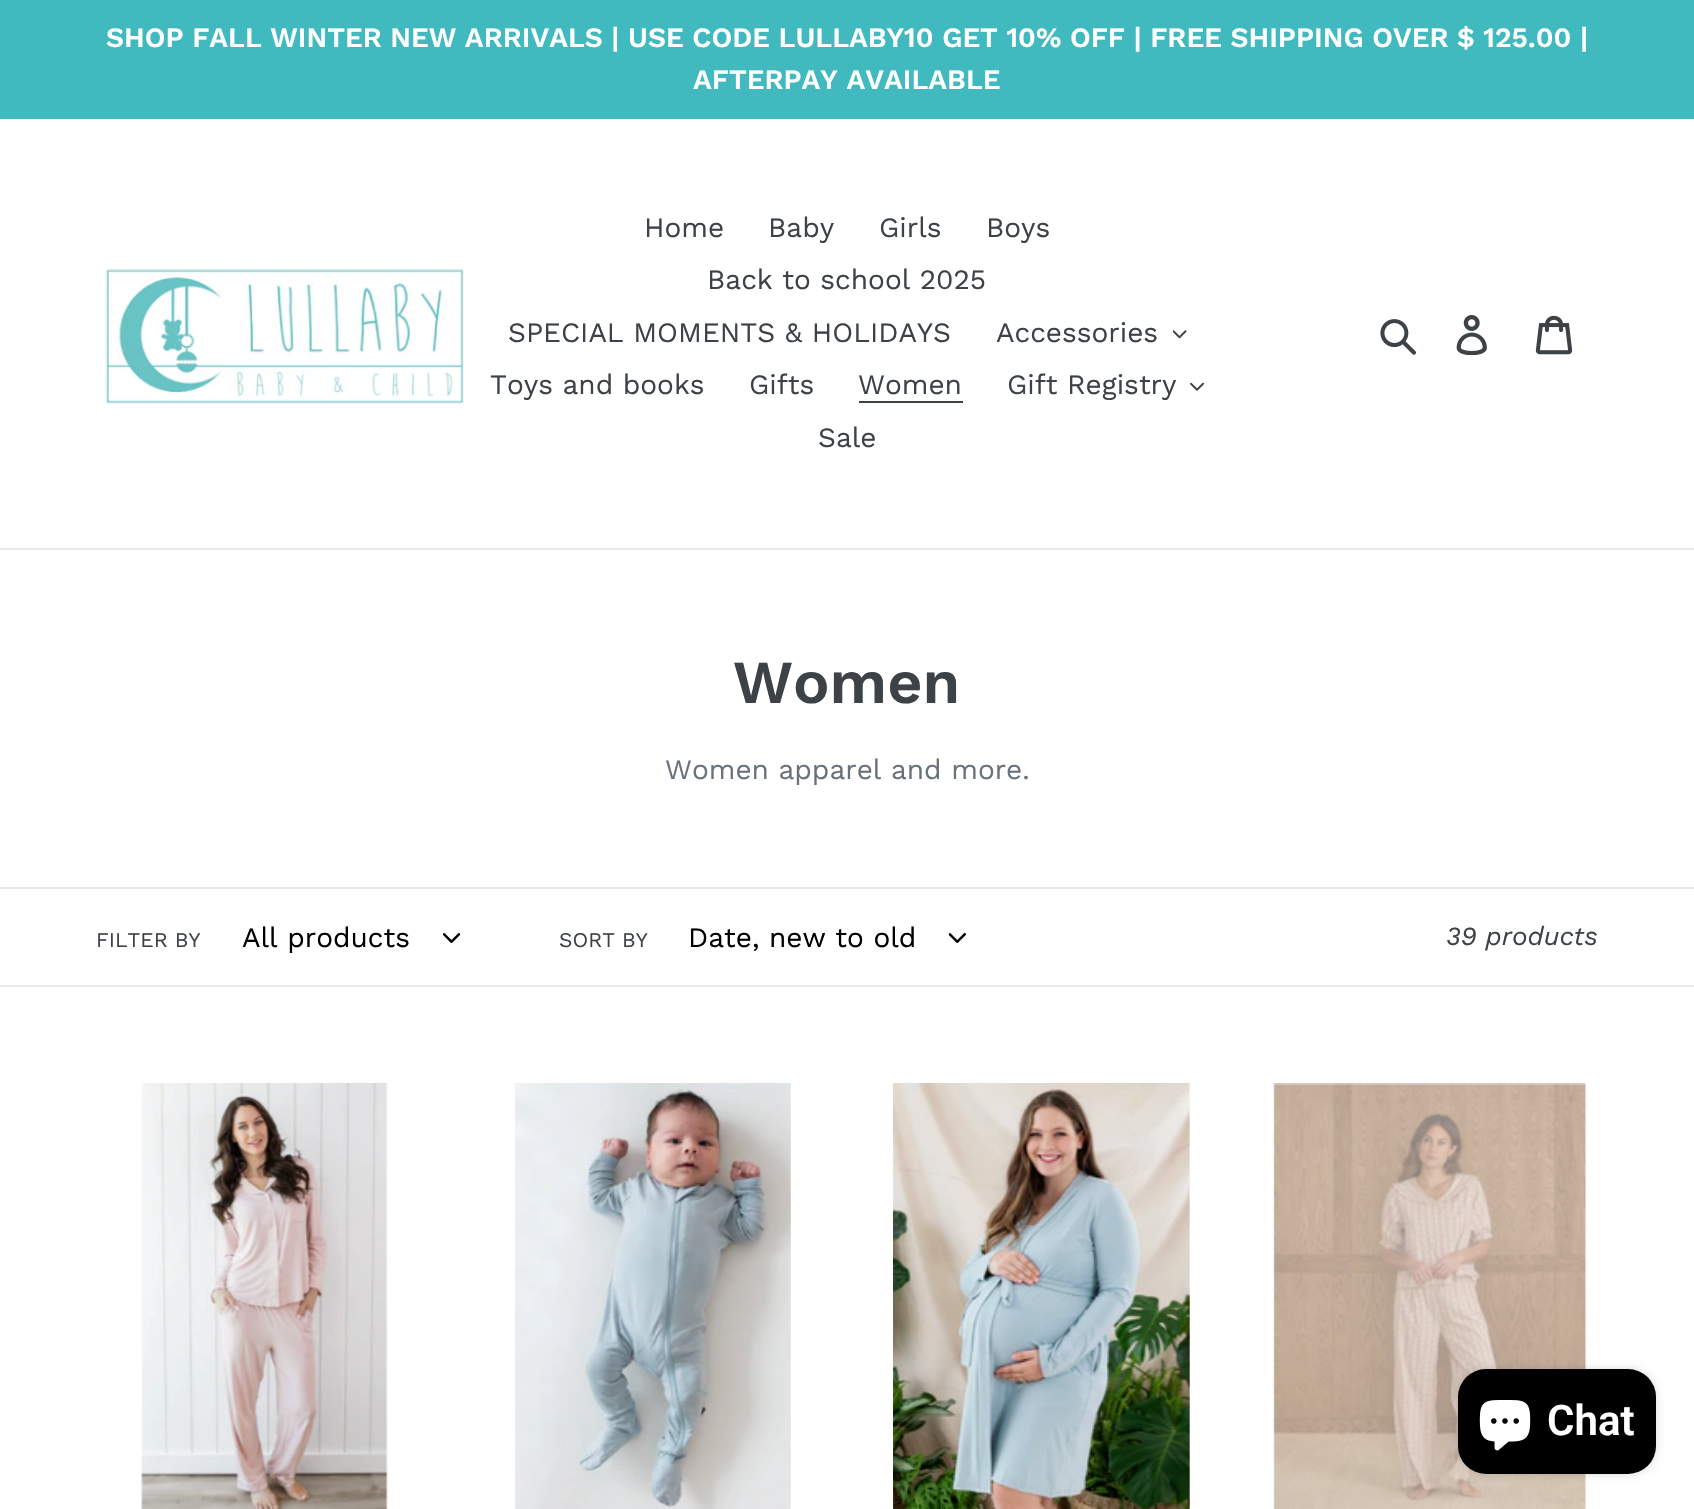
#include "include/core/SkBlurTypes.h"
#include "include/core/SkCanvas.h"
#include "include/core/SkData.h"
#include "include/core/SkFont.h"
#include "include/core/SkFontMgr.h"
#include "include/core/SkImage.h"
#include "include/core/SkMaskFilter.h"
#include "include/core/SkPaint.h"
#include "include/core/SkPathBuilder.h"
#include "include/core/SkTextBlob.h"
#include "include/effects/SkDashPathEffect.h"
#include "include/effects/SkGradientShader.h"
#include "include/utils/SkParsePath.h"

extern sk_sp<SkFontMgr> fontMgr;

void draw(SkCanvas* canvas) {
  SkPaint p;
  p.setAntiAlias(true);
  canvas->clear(SK_ColorWHITE);
  p.setColor(SkColorSetRGB(64, 186, 190));
  canvas->drawRect(SkRect::MakeLTRB(0, 0, 1694, 119), p);
  p.setColor(SkColorSetRGB(232, 233, 235));
  canvas->drawRect(SkRect::MakeLTRB(0, 548, 1694, 550), p);
  canvas->drawImageRect(SkImages::DeferredFromEncodedData(SkData::MakeFromFileName("images/1.png")), SkRect::MakeLTRB(105, 267, 465, 405), SkSamplingOptions());
  canvas->drawImageRect(SkImages::DeferredFromEncodedData(SkData::MakeFromFileName("images/2.png")), SkRect::MakeLTRB(1173, 330, 1187, 339), SkSamplingOptions());
  p.setColor(SkColorSetRGB(61, 66, 70));
  canvas->drawRect(SkRect::MakeLTRB(859, 401, 963, 403), p);
  canvas->drawImageRect(SkImages::DeferredFromEncodedData(SkData::MakeFromFileName("images/3.png")), SkRect::MakeLTRB(1190, 382, 1204, 391), SkSamplingOptions());
  canvas->drawImageRect(SkImages::DeferredFromEncodedData(SkData::MakeFromFileName("images/4.png")), SkRect::MakeLTRB(1380, 319, 1416, 355), SkSamplingOptions());
  canvas->drawImageRect(SkImages::DeferredFromEncodedData(SkData::MakeFromFileName("images/5.png")), SkRect::MakeLTRB(1456, 315, 1487, 355), SkSamplingOptions());
  canvas->drawImageRect(SkImages::DeferredFromEncodedData(SkData::MakeFromFileName("images/6.png")), SkRect::MakeLTRB(1535, 315, 1573, 355), SkSamplingOptions());
  p.setColor(SkColorSetRGB(232, 233, 235));
  canvas->drawRect(SkRect::MakeLTRB(0, 887, 1694, 889), p);
  canvas->drawRect(SkRect::MakeLTRB(0, 985, 1694, 987), p);
  canvas->drawImageRect(SkImages::DeferredFromEncodedData(SkData::MakeFromFileName("images/7.png")), SkRect::MakeLTRB(443, 933, 460, 943), SkSamplingOptions());
  canvas->drawImageRect(SkImages::DeferredFromEncodedData(SkData::MakeFromFileName("images/8.png")), SkRect::MakeLTRB(949, 933, 966, 943), SkSamplingOptions());
  canvas->drawImageRect(SkImages::DeferredFromEncodedData(SkData::MakeFromFileName("images/9.png")), SkRect::MakeLTRB(141, 1083, 388, 1509), SkSamplingOptions());
  canvas->drawImageRect(SkImages::DeferredFromEncodedData(SkData::MakeFromFileName("images/10.png")), SkRect::MakeLTRB(515, 1083, 791, 1509), SkSamplingOptions());
  canvas->drawImageRect(SkImages::DeferredFromEncodedData(SkData::MakeFromFileName("images/11.png")), SkRect::MakeLTRB(893, 1083, 1190, 1509), SkSamplingOptions());
  canvas->drawImageRect(SkImages::DeferredFromEncodedData(SkData::MakeFromFileName("images/12.png")), SkRect::MakeLTRB(1273, 1083, 1587, 1509), SkSamplingOptions());
  p.setColor(SkColorSetARGB(38, 0, 0, 0));
  p.setMaskFilter(SkMaskFilter::MakeBlur(kNormal_SkBlurStyle, 4.5f));
  canvas->drawRoundRect(SkRect::MakeLTRB(1458, 1369, 1656, 1474), 28, 28, p);
  p.setMaskFilter(nullptr);
  p.setColor(SK_ColorBLACK);
  canvas->drawRoundRect(SkRect::MakeLTRB(1458, 1369, 1656, 1474), 28, 28, p);
  canvas->drawImageRect(SkImages::DeferredFromEncodedData(SkData::MakeFromFileName("images/13.png")), SkRect::MakeLTRB(1479, 1400, 1531, 1451), SkSamplingOptions());
  SkFont font1(fontMgr->matchFamilyStyle("Work Sans", SkFontStyle(600, SkFontStyle::kNormal_Width, SkFontStyle::kUpright_Slant)), 28);
  font1.setSubpixel(true);
  p.setColor(SK_ColorWHITE);
  canvas->drawString("SHOP FALL WINTER NEW ARRIVALS | USE CODE LULLABY10 GET 10% OFF | FREE SHIPPING OVER $ 125.00 |", 106, 47, font1, p);
  canvas->drawString("AFTERPAY AVAILABLE", 693, 89, font1, p);
  SkFont font2(fontMgr->matchFamilyStyle("Work Sans", SkFontStyle::Normal()), 28);
  font2.setSubpixel(true);
  p.setColor(SkColorSetRGB(61, 66, 70));
  canvas->drawString("Home", 644, 237, font2, p);
  canvas->drawString("Baby", 768, 237, font2, p);
  canvas->drawString("Girls", 879, 237, font2, p);
  canvas->drawString("Boys", 986, 237, font2, p);
  canvas->drawString("Back to school 2025", 707, 289, font2, p);
  canvas->drawString("SPECIAL MOMENTS & HOLIDAYS", 508, 342, font2, p);
  canvas->drawString("Accessories", 996, 342, font2, p);
  canvas->drawString("Toys and books", 490, 394, font2, p);
  canvas->drawString("Gifts", 749, 394, font2, p);
  canvas->drawString("Women", 858, 394, font2, p);
  canvas->drawString("Gift Registry", 1007, 394, font2, p);
  canvas->drawString("Sale", 818, 447, font2, p);
  SkFont font3(fontMgr->matchFamilyStyle("Work Sans", SkFontStyle(600, SkFontStyle::kNormal_Width, SkFontStyle::kUpright_Slant)), 61);
  font3.setSubpixel(true);
  canvas->drawString("Women", 733, 703, font3, p);
  p.setColor(SkColorSetRGB(105, 114, 123));
  canvas->drawString("Women apparel and more.", 665, 779, font2, p);
  SkFont font4(fontMgr->matchFamilyStyle("Work Sans", SkFontStyle::Normal()), 21);
  font4.setSubpixel(true);
  p.setColor(SkColorSetRGB(61, 66, 70));
  canvas->drawString("FILTER BY", 96, 947, font4, p);
  p.setColor(SK_ColorBLACK);
  canvas->drawString("All products", 242, 947, font2, p);
  p.setColor(SkColorSetRGB(61, 66, 70));
  canvas->drawString("SORT BY", 559, 947, font4, p);
  p.setColor(SK_ColorBLACK);
  canvas->drawString("Date, new to old", 688, 947, font2, p);
  SkFont font5(fontMgr->matchFamilyStyle("Work Sans", SkFontStyle::Italic()), 26.25f);
  font5.setSubpixel(true);
  p.setColor(SkColorSetRGB(61, 66, 70));
  canvas->drawString("39 products", 1446, 945, font5, p);
  SkFont font6(fontMgr->matchFamilyStyle("Roboto", SkFontStyle(600, SkFontStyle::kNormal_Width, SkFontStyle::kUpright_Slant)), 42);
  font6.setSubpixel(true);
  p.setColor(SK_ColorWHITE);
  canvas->drawString("Chat", 1547, 1435, font6, p);
}
